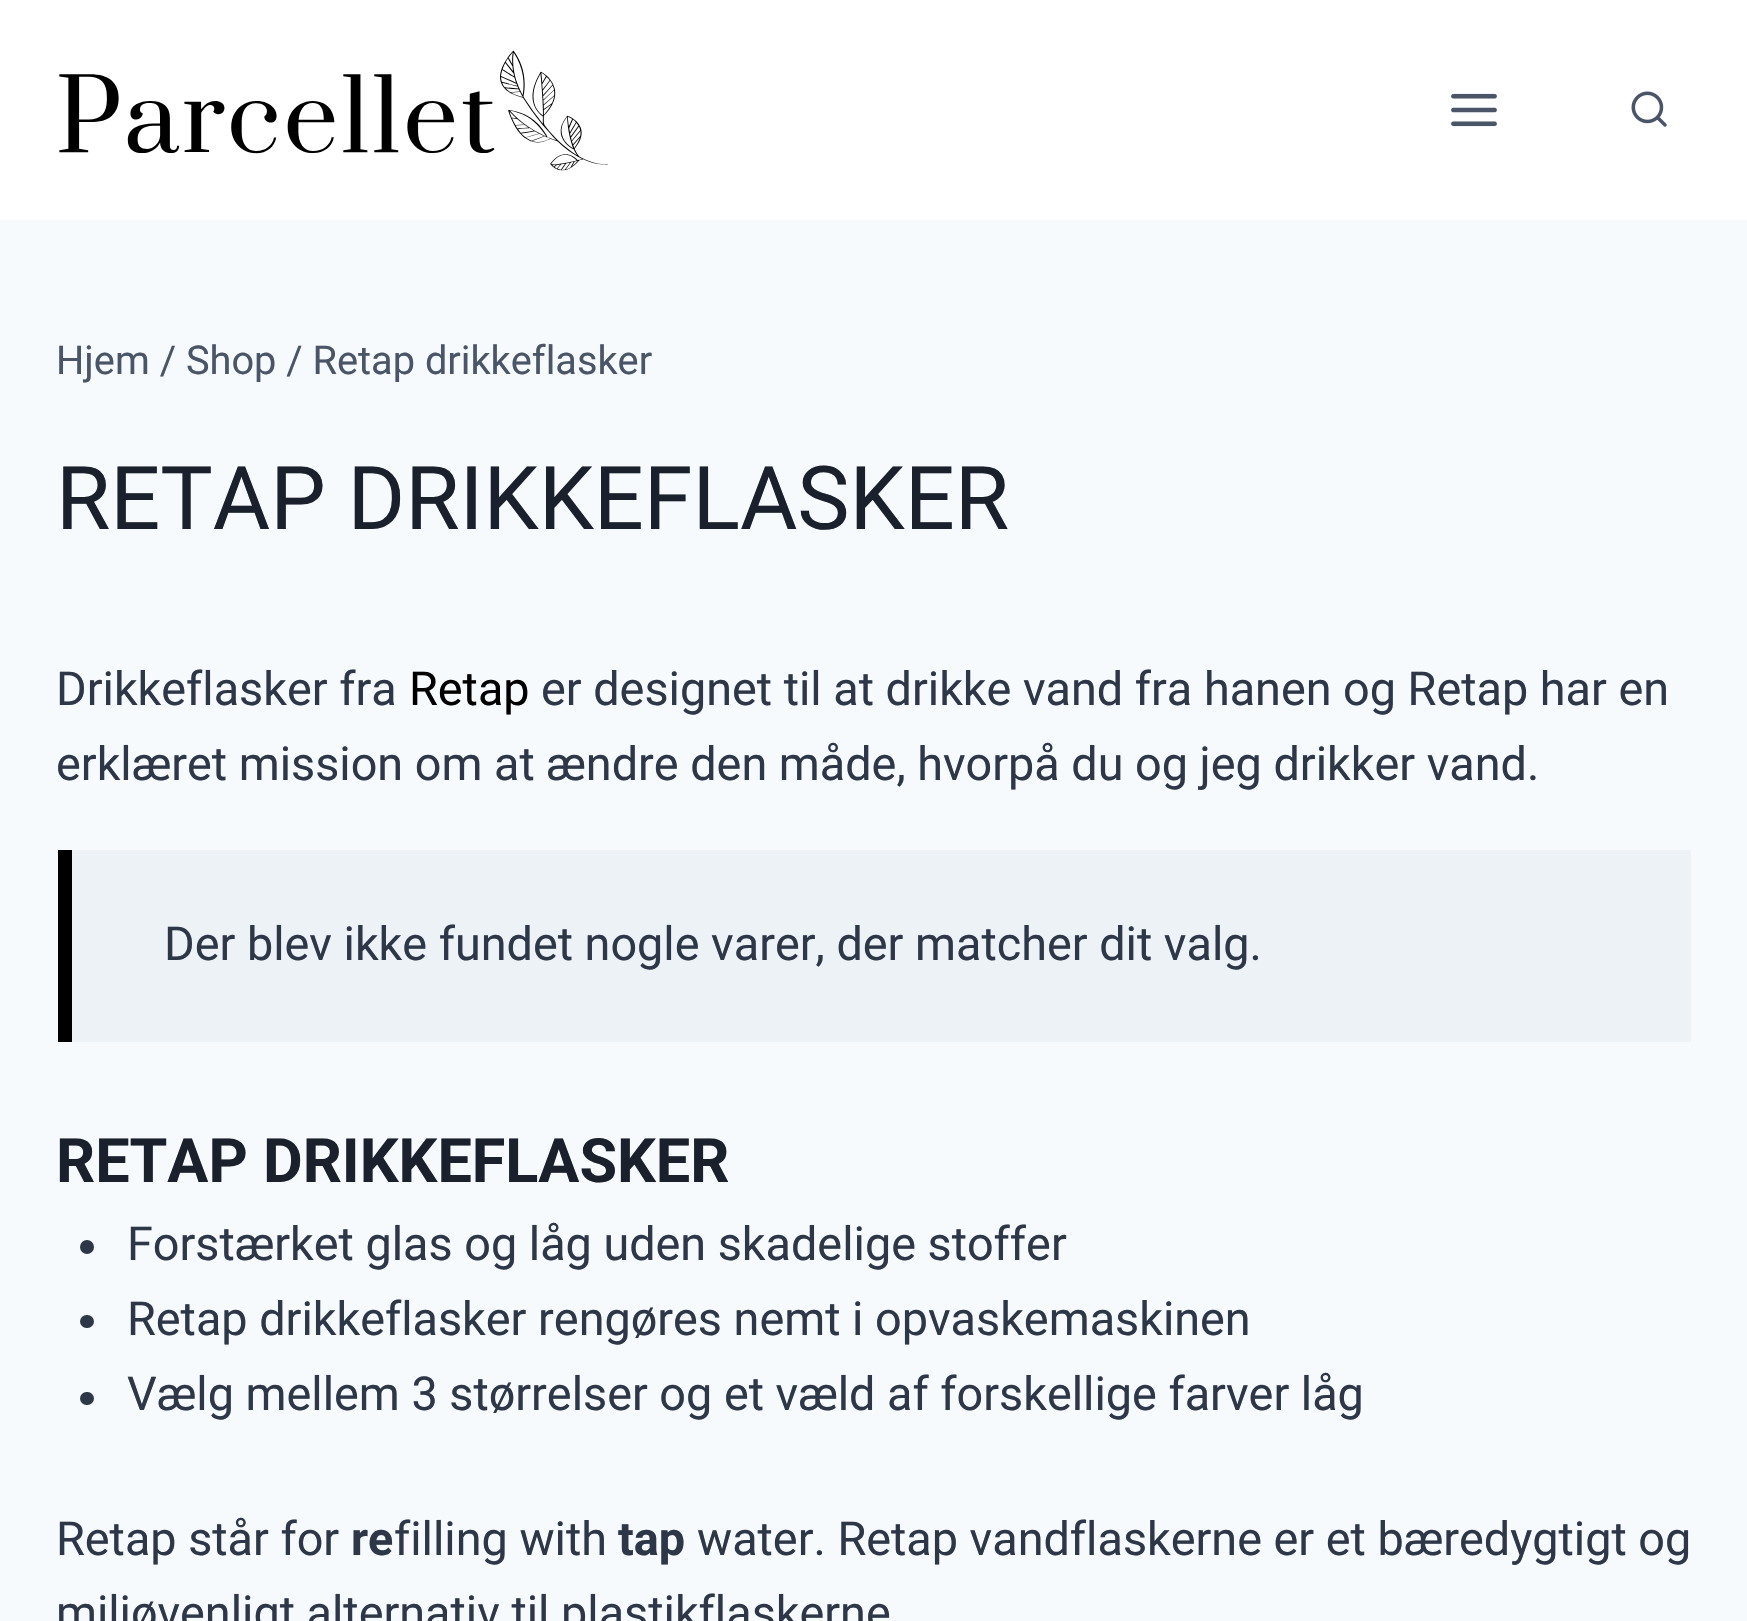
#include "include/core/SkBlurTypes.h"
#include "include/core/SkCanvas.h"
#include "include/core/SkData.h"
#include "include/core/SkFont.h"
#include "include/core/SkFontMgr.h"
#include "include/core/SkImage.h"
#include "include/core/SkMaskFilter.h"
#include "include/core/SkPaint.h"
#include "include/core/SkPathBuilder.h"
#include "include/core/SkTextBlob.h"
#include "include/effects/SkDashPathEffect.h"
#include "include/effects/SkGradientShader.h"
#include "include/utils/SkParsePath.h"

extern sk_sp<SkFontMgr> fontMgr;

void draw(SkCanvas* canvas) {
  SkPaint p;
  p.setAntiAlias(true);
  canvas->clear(SkColorSetRGB(247, 250, 252));
  p.setColor(SK_ColorWHITE);
  canvas->drawRect(SkRect::MakeLTRB(0, 0, 1747, 220), p);
  canvas->drawImageRect(SkImages::DeferredFromEncodedData(SkData::MakeFromFileName("images/1.png")), SkRect::MakeLTRB(59, 50, 608, 171), SkSamplingOptions());
  canvas->drawImageRect(SkImages::DeferredFromEncodedData(SkData::MakeFromFileName("images/2.png")), SkRect::MakeLTRB(1451, 93, 1497, 127), SkSamplingOptions());
  canvas->drawImageRect(SkImages::DeferredFromEncodedData(SkData::MakeFromFileName("images/3.png")), SkRect::MakeLTRB(1631, 91, 1667, 127), SkSamplingOptions());
  p.setColor(SkColorSetRGB(237, 242, 247));
  canvas->drawRect(SkRect::MakeLTRB(72, 850, 1691, 1042), p);
  p.setColor(SK_ColorBLACK);
  canvas->drawRect(SkRect::MakeLTRB(58, 850, 72, 1042), p);
  p.setColor(SkColorSetRGB(45, 55, 72));
  canvas->drawCircle(87, 1247, 7, p);
  canvas->drawRoundRect(SkRect::MakeLTRB(80, 1315, 94, 1328), 6.5f, 6.5f, p);
  canvas->drawRoundRect(SkRect::MakeLTRB(80, 1392, 94, 1405), 6.5f, 6.5f, p);
  SkFont font1(fontMgr->matchFamilyStyle("Roboto", SkFontStyle::Normal()), 39.75f);
  font1.setSubpixel(true);
  p.setColor(SkColorSetRGB(74, 85, 104));
  canvas->drawString("Hjem / Shop / Retap drikkeflasker", 56, 374, font1, p);
  SkFont font2(fontMgr->matchFamilyStyle("Roboto", SkFontStyle::Normal()), 88);
  font2.setSubpixel(true);
  p.setColor(SkColorSetRGB(26, 32, 44));
  canvas->drawString("RETAP DRIKKEFLASKER", 56, 529, font2, p);
  SkFont font3(fontMgr->matchFamilyStyle("Roboto", SkFontStyle::Normal()), 46.75f);
  font3.setSubpixel(true);
  p.setColor(SkColorSetRGB(45, 55, 72));
  canvas->drawString("Drikkeflasker fra", 56, 705, font3, p);
  p.setColor(SK_ColorBLACK);
  canvas->drawString("Retap", 409, 705, font3, p);
  p.setColor(SkColorSetRGB(45, 55, 72));
  canvas->drawString("er designet til at drikke vand fra hanen og Retap har en", 541, 705, font3, p);
  canvas->drawString("erklæret mission om at ændre den måde, hvorpå du og jeg drikker vand.", 56, 780, font3, p);
  canvas->drawString("Der blev ikke fundet nogle varer, der matcher dit valg.", 164, 960, font3, p);
  SkFont font4(fontMgr->matchFamilyStyle("Roboto", SkFontStyle::Bold()), 61.1f);
  font4.setSubpixel(true);
  p.setColor(SkColorSetRGB(26, 32, 44));
  canvas->drawString("RETAP DRIKKEFLASKER", 56, 1182, font4, p);
  p.setColor(SkColorSetRGB(45, 55, 72));
  canvas->drawString("Forstærket glas og låg uden skadelige stoffer", 127, 1260, font3, p);
  canvas->drawString("Retap drikkeflasker rengøres nemt i opvaskemaskinen", 127, 1335, font3, p);
  canvas->drawString("Vælg mellem 3 størrelser og et væld af forskellige farver låg", 127, 1410, font3, p);
  canvas->drawString("Retap står for", 56, 1555, font3, p);
  SkFont font5(fontMgr->matchFamilyStyle("Roboto", SkFontStyle::Bold()), 46.75f);
  font5.setSubpixel(true);
  canvas->drawString("re", 351, 1555, font5, p);
  canvas->drawString("filling with", 394, 1555, font3, p);
  canvas->drawString("tap", 618, 1555, font5, p);
  canvas->drawString("water. Retap vandflaskerne er et bæredygtigt og", 697, 1555, font3, p);
  canvas->drawString("miljøvenligt alternativ til plastikflaskerne", 56, 1629, font3, p);
}
